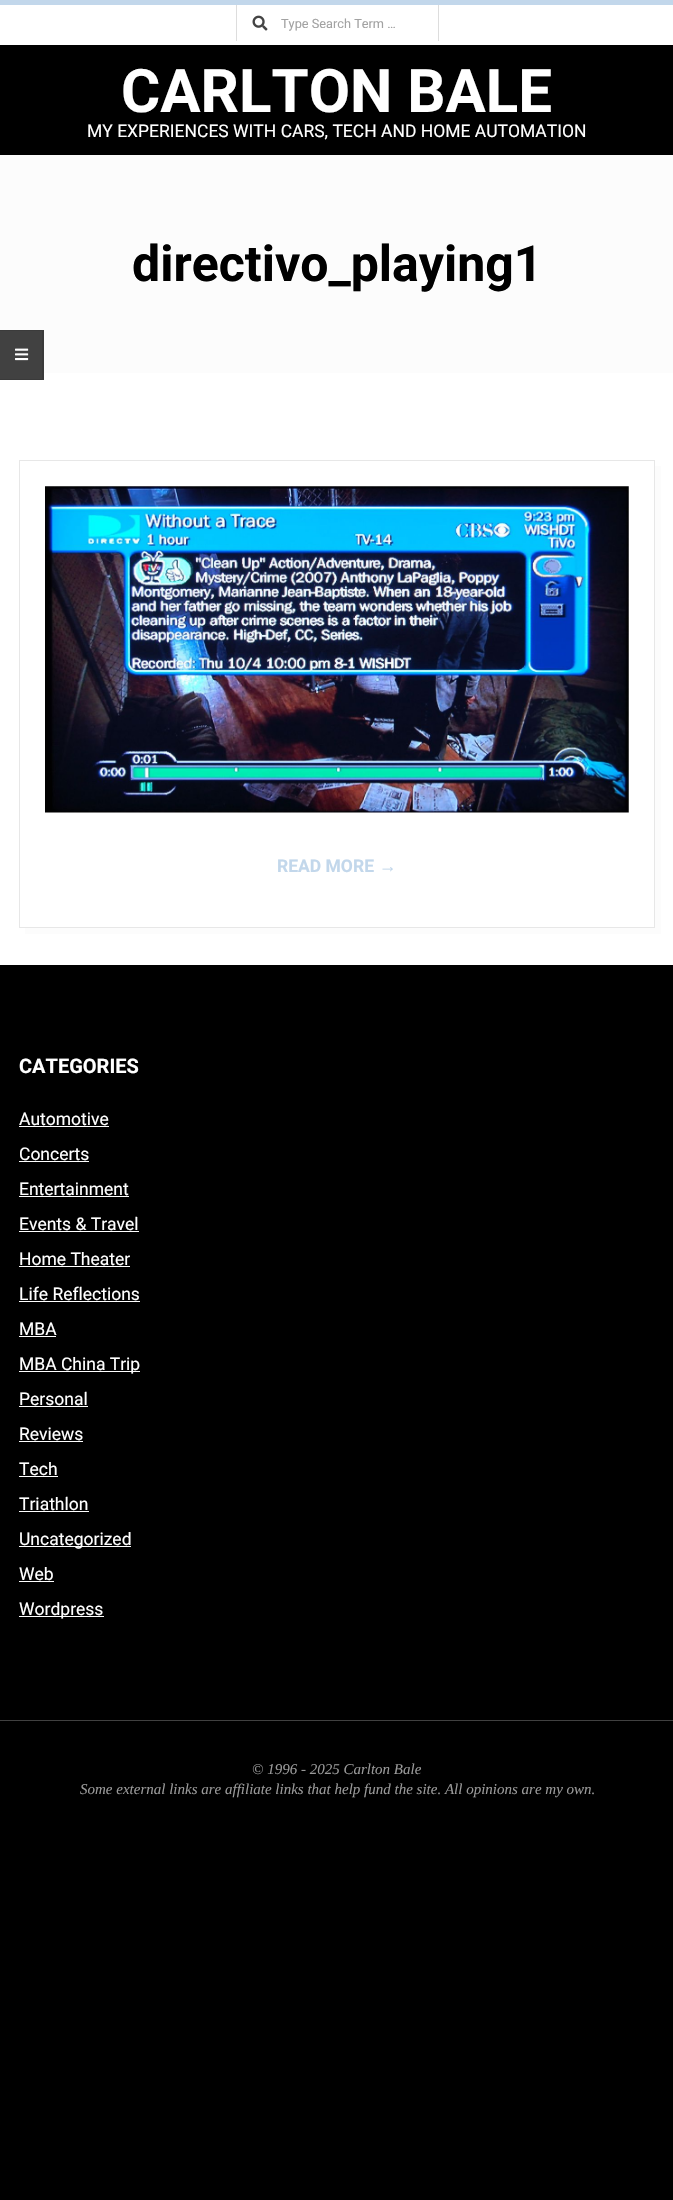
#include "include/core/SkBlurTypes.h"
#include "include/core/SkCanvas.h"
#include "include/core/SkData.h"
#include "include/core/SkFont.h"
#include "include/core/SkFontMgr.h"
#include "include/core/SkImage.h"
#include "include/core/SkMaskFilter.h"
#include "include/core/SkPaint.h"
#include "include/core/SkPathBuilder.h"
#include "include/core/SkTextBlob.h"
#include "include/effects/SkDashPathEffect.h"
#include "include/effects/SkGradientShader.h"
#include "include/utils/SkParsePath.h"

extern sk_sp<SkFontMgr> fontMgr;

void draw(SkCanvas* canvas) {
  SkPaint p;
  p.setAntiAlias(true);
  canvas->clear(SK_ColorBLACK);
  p.setColor(SK_ColorWHITE);
  canvas->drawRect(SkRect::MakeLTRB(0, 373, 673, 965), p);
  p.setColor(SkColorSetRGB(194, 215, 235));
  canvas->drawRect(SkRect::MakeLTRB(0, 0, 673, 5), p);
  p.setColor(SK_ColorWHITE);
  canvas->drawRect(SkRect::MakeLTRB(0, 5, 673, 45), p);
  canvas->drawImageRect(SkImages::DeferredFromEncodedData(SkData::MakeFromFileName("images/1.png")), SkRect::MakeLTRB(252, 15, 268, 31), SkSamplingOptions());
  p.setColor(SkColorSetRGB(221, 221, 221));
  canvas->drawRect(SkRect::MakeLTRB(438, 5, 439, 41), p);
  canvas->drawRect(SkRect::MakeLTRB(236, 5, 237, 41), p);
  p.setColor(SkColorSetRGB(252, 252, 252));
  canvas->drawRect(SkRect::MakeLTRB(0, 155, 673, 373), p);
  p.setColor(SkColorSetRGB(65, 65, 65));
  canvas->drawRect(SkRect::MakeLTRB(0, 330, 44, 380), p);
  p.setColor(SkColorSetRGB(59, 59, 59));
  canvas->drawPath(SkPathBuilder().moveTo(0, 330).lineTo(44, 330).lineTo(42, 331).lineTo(0, 331).close().detach(), p);
  p.setColor(SkColorSetRGB(58, 58, 58));
  canvas->drawPath(SkPathBuilder().moveTo(44, 330).lineTo(44, 380).lineTo(42, 379).lineTo(42, 331).close().detach(), p);
  canvas->drawPath(SkPathBuilder().moveTo(44, 380).lineTo(0, 380).lineTo(0, 379).lineTo(42, 379).close().detach(), p);
  canvas->drawImageRect(SkImages::DeferredFromEncodedData(SkData::MakeFromFileName("images/2.png")), SkRect::MakeLTRB(15, 348, 29, 361), SkSamplingOptions());
  p.setColor(SkColorSetRGB(252, 252, 252));
  canvas->drawPath(SkPathBuilder().moveTo(25, 928).lineTo(25, 934).lineTo(661, 934).lineTo(661, 466).lineTo(655, 466).lineTo(655, 928).close().detach(), p);
  p.setStyle(SkPaint::kStroke_Style);
  p.setStrokeWidth(1);
  p.setColor(SkColorSetRGB(231, 231, 231));
  canvas->drawRect(SkRect::MakeLTRB(19.5f, 460.5f, 654.5f, 927.5f), p);
  canvas->drawImageRect(SkImages::DeferredFromEncodedData(SkData::MakeFromFileName("images/3.png")), SkRect::MakeLTRB(45, 486, 629, 813), SkSamplingOptions());
  p.setStyle(SkPaint::kFill_Style);
  p.setColor(SK_ColorWHITE);
  canvas->drawRect(SkRect::MakeLTRB(19, 1126, 109, 1127), p);
  canvas->drawRect(SkRect::MakeLTRB(19, 1161, 89, 1162), p);
  canvas->drawRect(SkRect::MakeLTRB(19, 1196, 129, 1197), p);
  canvas->drawRect(SkRect::MakeLTRB(19, 1231, 139, 1232), p);
  canvas->drawRect(SkRect::MakeLTRB(19, 1266, 130, 1267), p);
  canvas->drawRect(SkRect::MakeLTRB(19, 1301, 140, 1302), p);
  canvas->drawRect(SkRect::MakeLTRB(19, 1336, 56, 1337), p);
  canvas->drawRect(SkRect::MakeLTRB(19, 1371, 140, 1372), p);
  canvas->drawRect(SkRect::MakeLTRB(19, 1406, 88, 1407), p);
  canvas->drawRect(SkRect::MakeLTRB(19, 1441, 83, 1442), p);
  canvas->drawRect(SkRect::MakeLTRB(19, 1476, 58, 1477), p);
  canvas->drawRect(SkRect::MakeLTRB(19, 1511, 89, 1512), p);
  canvas->drawRect(SkRect::MakeLTRB(19, 1546, 131, 1547), p);
  canvas->drawRect(SkRect::MakeLTRB(19, 1581, 54, 1582), p);
  canvas->drawRect(SkRect::MakeLTRB(19, 1616, 104, 1617), p);
  p.setColor(SkColorSetRGB(64, 64, 64));
  canvas->drawRect(SkRect::MakeLTRB(0, 1720, 673, 1721), p);
  SkFont font1(fontMgr->matchFamilyStyle("Roboto", SkFontStyle::Normal()), 12.75f);
  font1.setSubpixel(true);
  p.setColor(SkColorSetRGB(162, 162, 162));
  canvas->drawString("Type Search Term …", 281, 28, font1, p);
  SkFont font2(fontMgr->matchFamilyStyle("Roboto", SkFontStyle::Bold()), 60);
  font2.setSubpixel(true);
  p.setColor(SK_ColorWHITE);
  canvas->drawString("CARLTON BALE", 121, 112, font2, p);
  SkFont font3(fontMgr->matchFamilyStyle("Roboto", SkFontStyle::Normal()), 17.5f);
  font3.setSubpixel(true);
  canvas->drawString("MY EXPERIENCES WITH CARS, TECH AND HOME AUTOMATION", 87, 137, font3, p);
  SkFont font4(fontMgr->matchFamilyStyle("Roboto", SkFontStyle::Bold()), 50);
  font4.setSubpixel(true);
  p.setColor(SK_ColorBLACK);
  canvas->drawString("directivo_playing1", 132, 281, font4, p);
  SkFont font5(fontMgr->matchFamilyStyle("Roboto", SkFontStyle::Bold()), 17.5f);
  font5.setSubpixel(true);
  p.setColor(SkColorSetRGB(194, 215, 235));
  canvas->drawString("READ MORE", 277, 872, font5, p);
  SkFont font6(fontMgr->matchFamilyStyle("Liberation Sans", SkFontStyle::Bold()), 17.5f);
  font6.setSubpixel(true);
  canvas->drawString("→", 379, 872, font6, p);
  SkFont font7(fontMgr->matchFamilyStyle("Roboto", SkFontStyle::Bold()), 20);
  font7.setSubpixel(true);
  p.setColor(SK_ColorWHITE);
  canvas->drawString("CATEGORIES", 19, 1073, font7, p);
  canvas->drawString("Automotive", 19, 1125, font3, p);
  canvas->drawString("Concerts", 19, 1160, font3, p);
  canvas->drawString("Entertainment", 19, 1195, font3, p);
  canvas->drawString("Events & Travel", 19, 1230, font3, p);
  canvas->drawString("Home Theater", 19, 1265, font3, p);
  canvas->drawString("Life Reflections", 19, 1300, font3, p);
  canvas->drawString("MBA", 19, 1335, font3, p);
  canvas->drawString("MBA China Trip", 19, 1370, font3, p);
  canvas->drawString("Personal", 19, 1405, font3, p);
  canvas->drawString("Reviews", 19, 1440, font3, p);
  canvas->drawString("Tech", 19, 1475, font3, p);
  canvas->drawString("Triathlon", 19, 1510, font3, p);
  canvas->drawString("Uncategorized", 19, 1545, font3, p);
  canvas->drawString("Web", 19, 1580, font3, p);
  canvas->drawString("Wordpress", 19, 1615, font3, p);
  SkFont font8(fontMgr->matchFamilyStyle("Liberation Serif", SkFontStyle::Italic()), 15);
  font8.setSubpixel(true);
  p.setColor(SkColorSetRGB(153, 153, 153));
  canvas->drawString("© 1996 - 2025 Carlton Bale", 252, 1774, font8, p);
  canvas->drawString("Some external links are affiliate links that help fund the site. All opinions are my own.", 80, 1794, font8, p);
}
